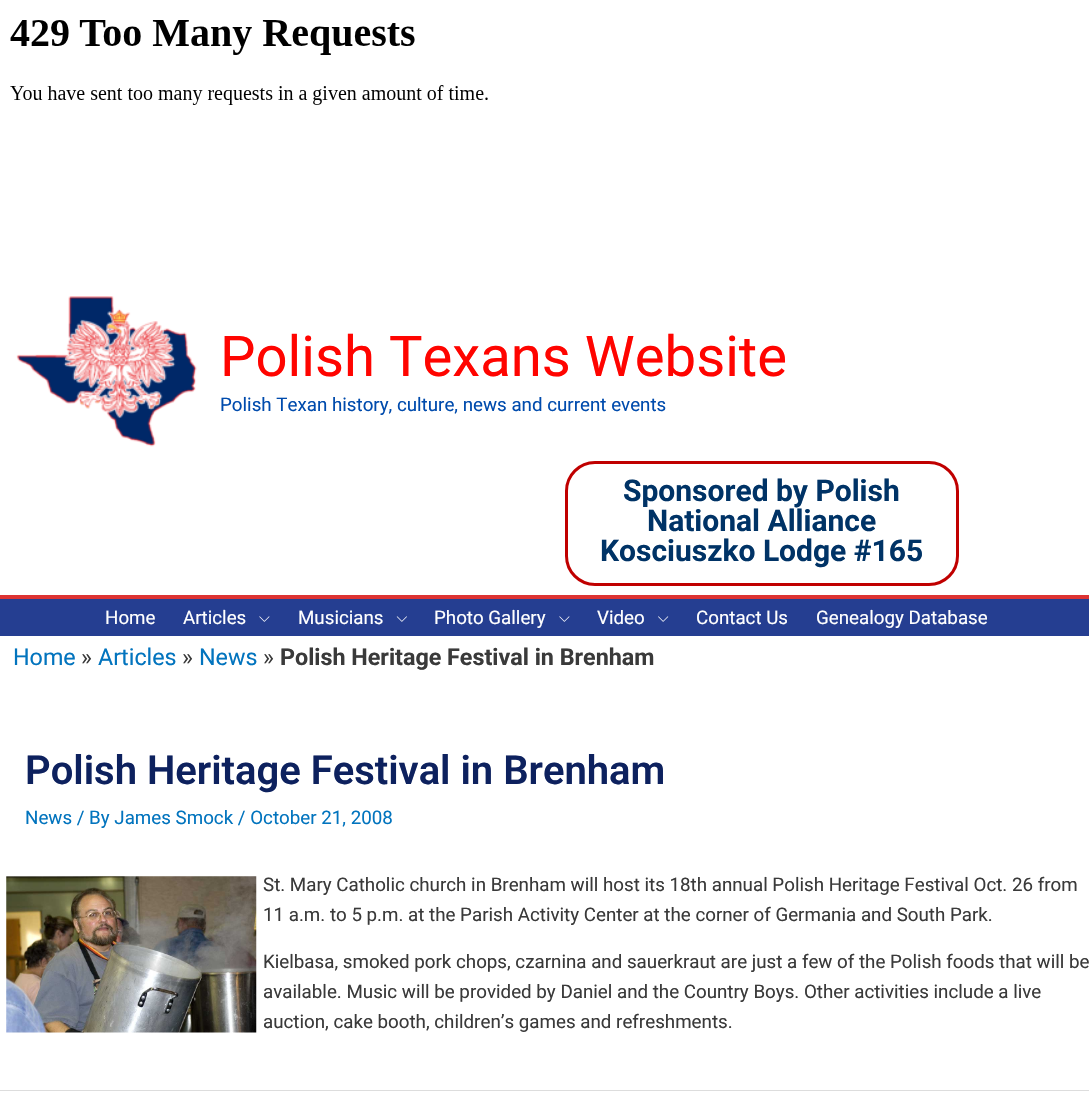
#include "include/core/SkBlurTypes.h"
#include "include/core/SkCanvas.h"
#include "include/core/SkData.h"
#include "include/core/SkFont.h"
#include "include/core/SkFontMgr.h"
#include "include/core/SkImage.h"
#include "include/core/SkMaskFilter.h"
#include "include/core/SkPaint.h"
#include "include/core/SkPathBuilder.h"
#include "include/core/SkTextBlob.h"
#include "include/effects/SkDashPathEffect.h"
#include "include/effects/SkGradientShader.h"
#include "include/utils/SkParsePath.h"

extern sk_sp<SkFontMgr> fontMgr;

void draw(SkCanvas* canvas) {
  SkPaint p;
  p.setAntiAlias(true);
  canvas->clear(SK_ColorWHITE);
  canvas->drawImageRect(SkImages::DeferredFromEncodedData(SkData::MakeFromFileName("images/1.png")), SkRect::MakeLTRB(10, 20, 488, 105), SkSamplingOptions());
  p.setColor(SkColorSetRGB(221, 51, 51));
  canvas->drawRect(SkRect::MakeLTRB(0, 595, 1089, 599), p);
  canvas->drawImageRect(SkImages::DeferredFromEncodedData(SkData::MakeFromFileName("images/2.png")), SkRect::MakeLTRB(16, 296, 197, 447), SkSamplingOptions());
  p.setStyle(SkPaint::kStroke_Style);
  p.setStrokeWidth(3);
  p.setColor(SkColorSetRGB(192, 0, 0));
  canvas->drawRoundRect(SkRect::MakeLTRB(566.5f, 462.5f, 957.5f, 584.5f), 28.5f, 28.5f, p);
  p.setStyle(SkPaint::kFill_Style);
  p.setColor(SkColorSetRGB(37, 62, 145));
  canvas->drawRect(SkRect::MakeLTRB(0, 599, 1089, 636), p);
  canvas->drawImageRect(SkImages::DeferredFromEncodedData(SkData::MakeFromFileName("images/3.png")), SkRect::MakeLTRB(259, 616, 270, 622), SkSamplingOptions());
  canvas->drawImageRect(SkImages::DeferredFromEncodedData(SkData::MakeFromFileName("images/4.png")), SkRect::MakeLTRB(396, 616, 407, 622), SkSamplingOptions());
  canvas->drawImageRect(SkImages::DeferredFromEncodedData(SkData::MakeFromFileName("images/3.png")), SkRect::MakeLTRB(559, 616, 570, 622), SkSamplingOptions());
  canvas->drawImageRect(SkImages::DeferredFromEncodedData(SkData::MakeFromFileName("images/5.png")), SkRect::MakeLTRB(658, 616, 669, 622), SkSamplingOptions());
  canvas->drawImageRect(SkImages::DeferredFromEncodedData(SkData::MakeFromFileName("images/6.png")), SkRect::MakeLTRB(6, 876, 257, 1033), SkSamplingOptions());
  p.setColor(SkColorSetRGB(221, 221, 221));
  canvas->drawRect(SkRect::MakeLTRB(0, 1090, 1089, 1091), p);
  SkFont font1(fontMgr->matchFamilyStyle("Roboto", SkFontStyle::Normal()), 56.25f);
  font1.setSubpixel(true);
  p.setColor(SkColorSetRGB(255, 4, 0));
  canvas->drawString("Polish Texans Website", 220, 376, font1, p);
  SkFont font2(fontMgr->matchFamilyStyle("Roboto", SkFontStyle::Normal()), 18.75f);
  font2.setSubpixel(true);
  p.setColor(SkColorSetRGB(0, 75, 173));
  canvas->drawString("Polish Texan history, culture, news and current events", 220, 411, font2, p);
  SkFont font3(fontMgr->matchFamilyStyle("Roboto", SkFontStyle::Bold()), 30);
  font3.setSubpixel(true);
  p.setColor(SkColorSetRGB(0, 51, 102));
  canvas->drawString("Sponsored by Polish", 623, 501, font3, p);
  canvas->drawString("National Alliance", 647, 531, font3, p);
  canvas->drawString("Kosciuszko Lodge #165", 600, 561, font3, p);
  p.setColor(SK_ColorWHITE);
  canvas->drawString("Home", 105, 624, font2, p);
  canvas->drawString("Articles", 183, 624, font2, p);
  canvas->drawString("Musicians", 298, 624, font2, p);
  canvas->drawString("Photo Gallery", 434, 624, font2, p);
  canvas->drawString("Video", 597, 624, font2, p);
  canvas->drawString("Contact Us", 696, 624, font2, p);
  canvas->drawString("Genealogy Database", 816, 624, font2, p);
  SkFont font4(fontMgr->matchFamilyStyle("Roboto", SkFontStyle::Normal()), 23.3f);
  font4.setSubpixel(true);
  p.setColor(SkColorSetRGB(2, 116, 190));
  canvas->drawString("Home", 13, 665, font4, p);
  p.setColor(SkColorSetRGB(58, 58, 58));
  canvas->drawString("»", 81, 665, font4, p);
  p.setColor(SkColorSetRGB(2, 116, 190));
  canvas->drawString("Articles", 98, 665, font4, p);
  p.setColor(SkColorSetRGB(58, 58, 58));
  canvas->drawString("»", 182, 665, font4, p);
  p.setColor(SkColorSetRGB(2, 116, 190));
  canvas->drawString("News", 199, 665, font4, p);
  p.setColor(SkColorSetRGB(58, 58, 58));
  canvas->drawString("»", 263, 665, font4, p);
  SkFont font5(fontMgr->matchFamilyStyle("Roboto", SkFontStyle::Bold()), 23.3f);
  font5.setSubpixel(true);
  canvas->drawString("Polish Heritage Festival in Brenham", 280, 665, font5, p);
  SkFont font6(fontMgr->matchFamilyStyle("Roboto", SkFontStyle(600, SkFontStyle::kNormal_Width, SkFontStyle::kUpright_Slant)), 40);
  font6.setSubpixel(true);
  p.setColor(SkColorSetRGB(13, 33, 94));
  canvas->drawString("Polish Heritage Festival in Brenham", 25, 784, font6, p);
  p.setColor(SkColorSetRGB(2, 116, 190));
  canvas->drawString("News / By James Smock / October 21, 2008", 25, 824, font2, p);
  p.setColor(SkColorSetRGB(58, 58, 58));
  canvas->drawString("St. Mary Catholic church in Brenham will host its 18th annual Polish Heritage Festival Oct. 26 from", 263, 891, font2, p);
  canvas->drawString("11 a.m. to 5 p.m. at the Parish Activity Center at the corner of Germania and South Park.", 263, 921, font2, p);
  canvas->drawString("Kielbasa, smoked pork chops, czarnina and sauerkraut are just a few of the Polish foods that will be", 263, 968, font2, p);
  canvas->drawString("available. Music will be provided by Daniel and the Country Boys. Other activities include a live", 263, 998, font2, p);
  canvas->drawString("auction, cake booth, children’s games and refreshments.", 263, 1028, font2, p);
}
